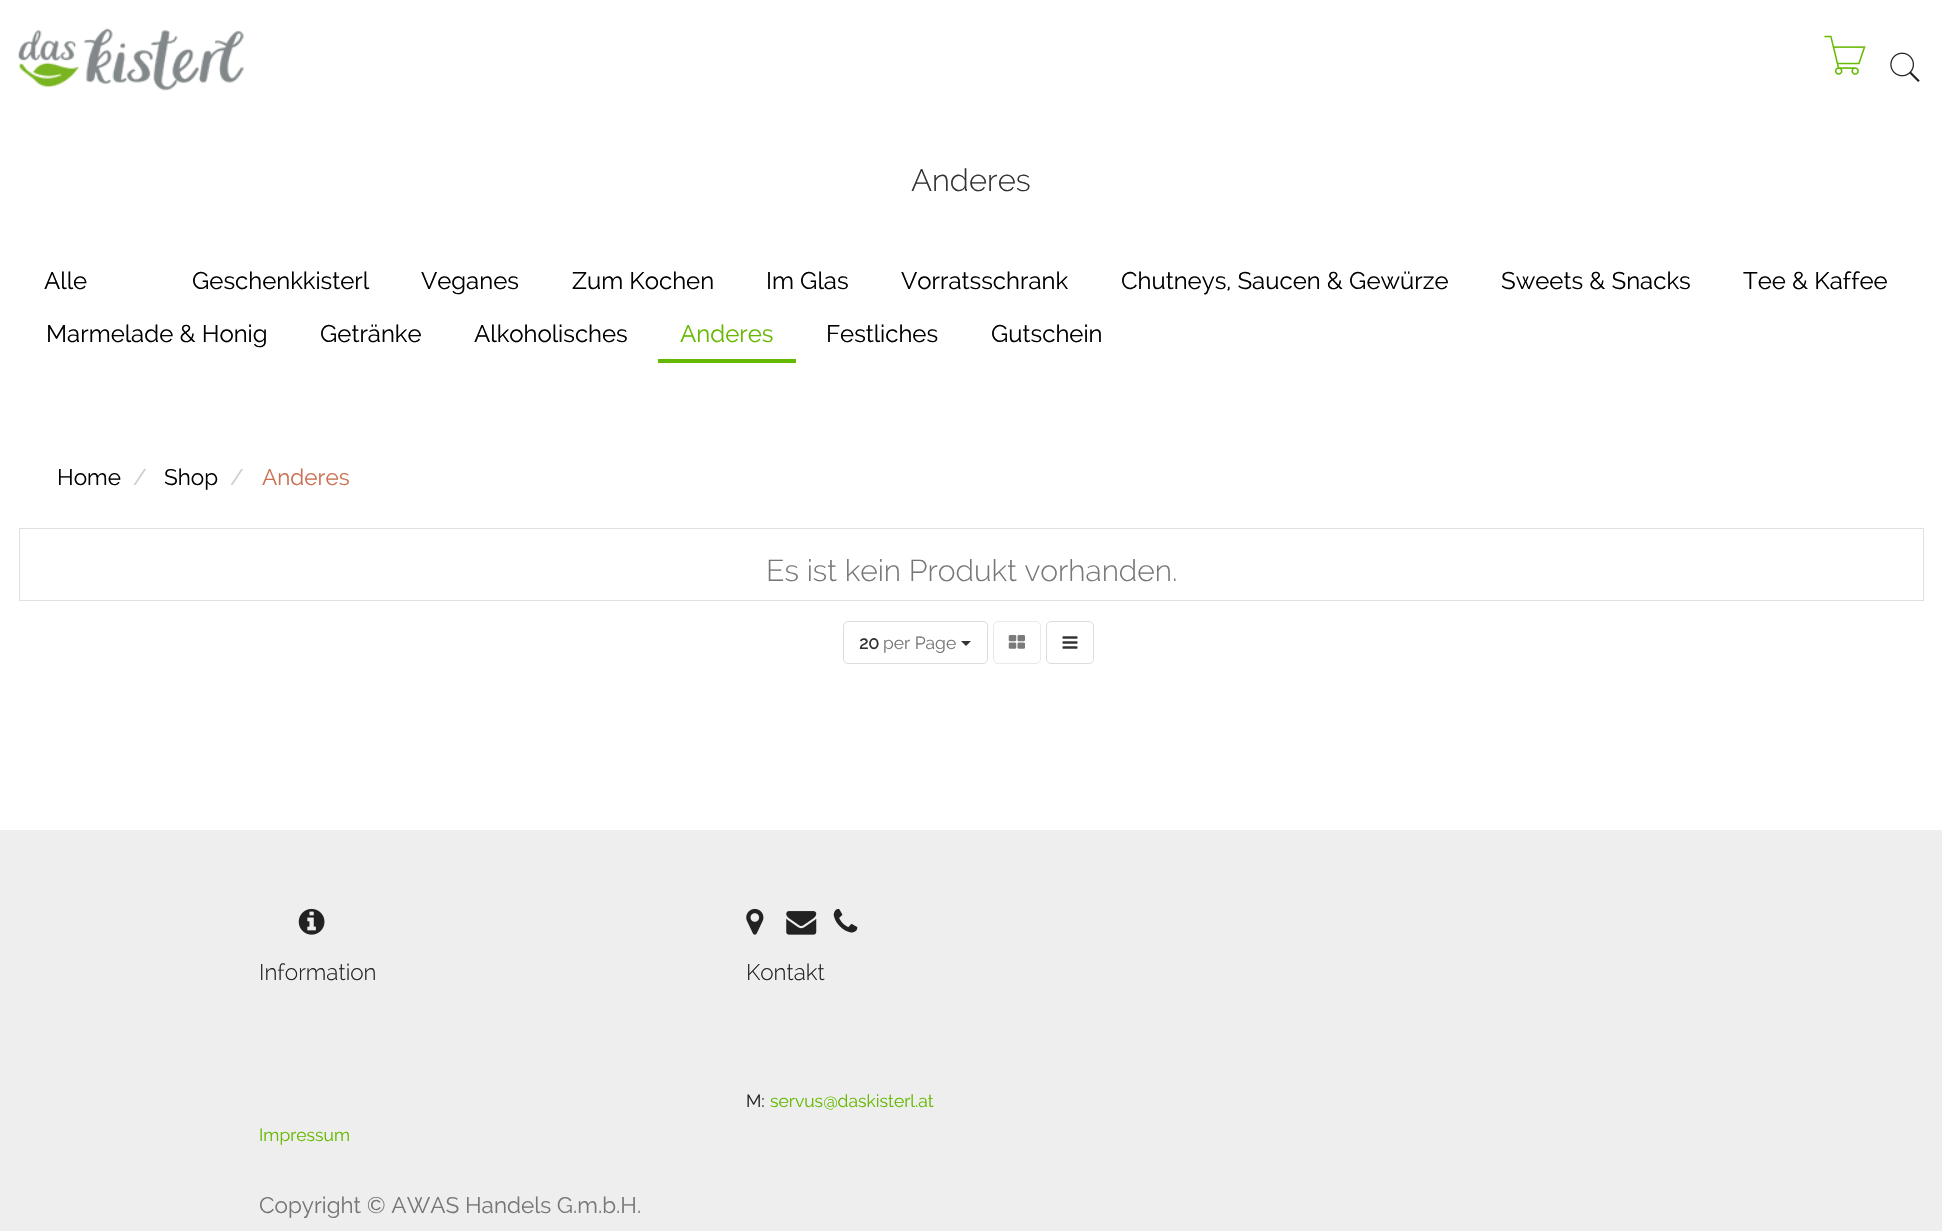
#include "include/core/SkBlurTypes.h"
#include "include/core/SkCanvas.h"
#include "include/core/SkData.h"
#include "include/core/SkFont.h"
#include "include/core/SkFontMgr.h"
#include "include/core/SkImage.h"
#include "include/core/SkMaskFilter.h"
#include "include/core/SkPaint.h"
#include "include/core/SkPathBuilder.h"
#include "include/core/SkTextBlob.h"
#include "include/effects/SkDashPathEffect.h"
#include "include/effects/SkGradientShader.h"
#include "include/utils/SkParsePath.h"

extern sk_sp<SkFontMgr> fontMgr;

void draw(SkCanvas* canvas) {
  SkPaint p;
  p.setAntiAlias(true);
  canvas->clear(SK_ColorWHITE);
  canvas->drawImageRect(SkImages::DeferredFromEncodedData(SkData::MakeFromFileName("images/1.png")), SkRect::MakeLTRB(18, 28, 244, 91), SkSamplingOptions());
  canvas->drawImageRect(SkImages::DeferredFromEncodedData(SkData::MakeFromFileName("images/2.png")), SkRect::MakeLTRB(1824, 35, 1866, 75), SkSamplingOptions());
  canvas->drawImageRect(SkImages::DeferredFromEncodedData(SkData::MakeFromFileName("images/3.png")), SkRect::MakeLTRB(1890, 52, 1920, 82), SkSamplingOptions());
  p.setColor(SkColorSetRGB(101, 185, 0));
  canvas->drawRect(SkRect::MakeLTRB(658, 359, 796, 363), p);
  p.setStyle(SkPaint::kStroke_Style);
  p.setStrokeWidth(1);
  p.setColor(SkColorSetRGB(224, 224, 224));
  canvas->drawRect(SkRect::MakeLTRB(19.5f, 528.5f, 1923.5f, 600.5f), p);
  p.setColor(SkColorSetRGB(221, 221, 221));
  canvas->drawRoundRect(SkRect::MakeLTRB(843.5f, 621.5f, 987.5f, 663.5f), 4.5f, 4.5f, p);
  p.setStyle(SkPaint::kFill_Style);
  p.setColor(SkColorSetRGB(51, 51, 51));
  canvas->drawPath(SkPathBuilder().moveTo(961, 641).lineTo(971, 641).lineTo(966, 646).close().detach(), p);
  p.setStyle(SkPaint::kStroke_Style);
  p.setColor(SkColorSetRGB(233, 233, 233));
  canvas->drawRoundRect(SkRect::MakeLTRB(993.5f, 621.5f, 1040.5f, 663.5f), 4.5f, 4.5f, p);
  canvas->drawImageRect(SkImages::DeferredFromEncodedData(SkData::MakeFromFileName("images/4.png")), SkRect::MakeLTRB(1008, 635, 1025, 649), SkSamplingOptions());
  p.setColor(SkColorSetRGB(221, 221, 221));
  canvas->drawRoundRect(SkRect::MakeLTRB(1046.5f, 621.5f, 1093.5f, 663.5f), 4.5f, 4.5f, p);
  canvas->drawImageRect(SkImages::DeferredFromEncodedData(SkData::MakeFromFileName("images/5.png")), SkRect::MakeLTRB(1062, 636, 1078, 649), SkSamplingOptions());
  p.setStyle(SkPaint::kFill_Style);
  p.setColor(SkColorSetRGB(238, 238, 238));
  canvas->drawRect(SkRect::MakeLTRB(0, 830, 1942, 1231), p);
  canvas->drawImageRect(SkImages::DeferredFromEncodedData(SkData::MakeFromFileName("images/6.png")), SkRect::MakeLTRB(298, 908, 325, 935), SkSamplingOptions());
  canvas->drawImageRect(SkImages::DeferredFromEncodedData(SkData::MakeFromFileName("images/7.png")), SkRect::MakeLTRB(746, 908, 764, 935), SkSamplingOptions());
  canvas->drawImageRect(SkImages::DeferredFromEncodedData(SkData::MakeFromFileName("images/8.png")), SkRect::MakeLTRB(786, 911, 817, 935), SkSamplingOptions());
  canvas->drawImageRect(SkImages::DeferredFromEncodedData(SkData::MakeFromFileName("images/9.png")), SkRect::MakeLTRB(833, 908, 858, 933), SkSamplingOptions());
  SkFont font1(fontMgr->matchFamilyStyle("Raleway", SkFontStyle(300, SkFontStyle::kNormal_Width, SkFontStyle::kUpright_Slant)), 31);
  font1.setSubpixel(true);
  p.setColor(SkColorSetRGB(51, 51, 51));
  canvas->drawString("Anderes", 911, 191, font1, p);
  SkFont font2(fontMgr->matchFamilyStyle("Raleway", SkFontStyle::Normal()), 24);
  font2.setSubpixel(true);
  p.setColor(SK_ColorBLACK);
  canvas->drawString("Alle", 44, 289, font2, p);
  canvas->drawString("Geschenkkisterl", 192, 289, font2, p);
  canvas->drawString("Veganes", 421, 289, font2, p);
  canvas->drawString("Zum Kochen", 572, 289, font2, p);
  canvas->drawString("Im Glas", 766, 289, font2, p);
  canvas->drawString("Vorratsschrank", 901, 289, font2, p);
  canvas->drawString("Chutneys, Saucen & Gewürze", 1121, 289, font2, p);
  canvas->drawString("Sweets & Snacks", 1501, 289, font2, p);
  canvas->drawString("Tee & Kaffee", 1743, 289, font2, p);
  canvas->drawString("Marmelade & Honig", 46, 342, font2, p);
  canvas->drawString("Getränke", 320, 342, font2, p);
  canvas->drawString("Alkoholisches", 474, 342, font2, p);
  p.setColor(SkColorSetRGB(101, 185, 0));
  canvas->drawString("Anderes", 680, 342, font2, p);
  p.setColor(SK_ColorBLACK);
  canvas->drawString("Festliches", 826, 342, font2, p);
  canvas->drawString("Gutschein", 991, 342, font2, p);
  SkFont font3(fontMgr->matchFamilyStyle("Raleway", SkFontStyle::Normal()), 22.5f);
  font3.setSubpixel(true);
  canvas->drawString("Home", 57, 485, font3, p);
  p.setColor(SkColorSetRGB(204, 204, 204));
  canvas->drawString("/", 133, 485, font3, p);
  p.setColor(SK_ColorBLACK);
  canvas->drawString("Shop", 164, 485, font3, p);
  p.setColor(SkColorSetRGB(204, 204, 204));
  canvas->drawString("/", 230, 485, font3, p);
  p.setColor(SkColorSetRGB(203, 113, 82));
  canvas->drawString("Anderes", 262, 485, font3, p);
  SkFont font4(fontMgr->matchFamilyStyle("Raleway", SkFontStyle(300, SkFontStyle::kNormal_Width, SkFontStyle::kUpright_Slant)), 30);
  font4.setSubpixel(true);
  p.setColor(SkColorSetRGB(119, 119, 119));
  canvas->drawString("Es ist kein Produkt vorhanden.", 766, 581, font4, p);
  SkFont font5(fontMgr->matchFamilyStyle("Raleway", SkFontStyle::Bold()), 17.5f);
  font5.setSubpixel(true);
  p.setColor(SkColorSetRGB(51, 51, 51));
  canvas->drawString("20", 859, 649, font5, p);
  SkFont font6(fontMgr->matchFamilyStyle("Raleway", SkFontStyle::Normal()), 17.5f);
  font6.setSubpixel(true);
  p.setColor(SkColorSetRGB(119, 119, 119));
  canvas->drawString("per Page", 883, 649, font6, p);
  SkFont font7(fontMgr->matchFamilyStyle("Raleway", SkFontStyle(300, SkFontStyle::kNormal_Width, SkFontStyle::kUpright_Slant)), 22.5f);
  font7.setSubpixel(true);
  p.setColor(SkColorSetRGB(34, 34, 34));
  canvas->drawString("Information", 259, 980, font7, p);
  p.setColor(SkColorSetRGB(101, 185, 0));
  canvas->drawString("Impressum", 259, 1141, font6, p);
  p.setColor(SkColorSetRGB(34, 34, 34));
  canvas->drawString("Kontakt", 746, 980, font7, p);
  canvas->drawString("M:", 746, 1107, font6, p);
  p.setColor(SkColorSetRGB(101, 185, 0));
  canvas->drawString("servus@daskisterl.at", 770, 1107, font6, p);
  p.setColor(SkColorSetRGB(119, 119, 119));
  canvas->drawString("Copyright © AWAS Handels G.m.b.H.", 259, 1213, font3, p);
}
